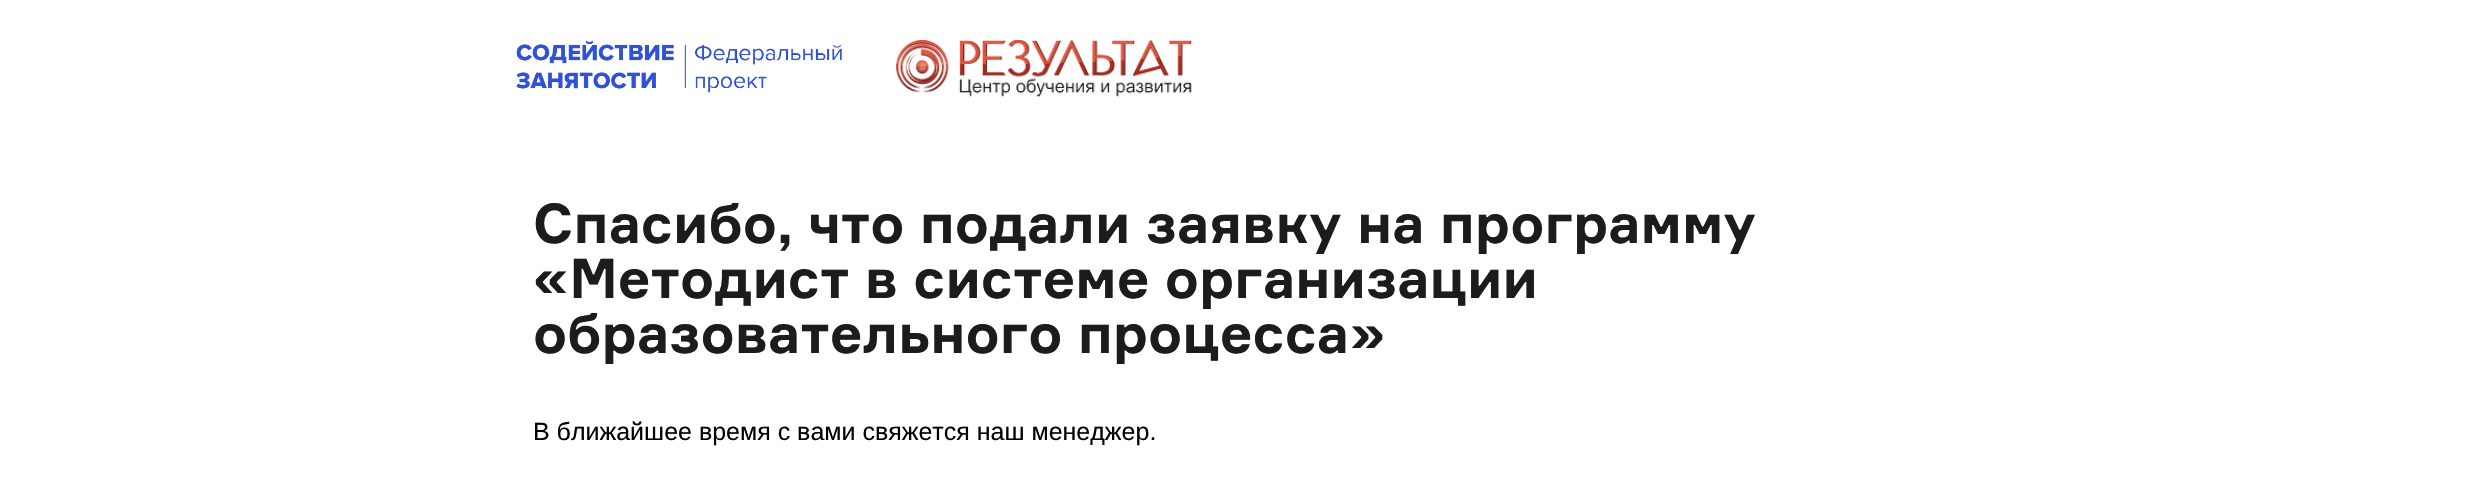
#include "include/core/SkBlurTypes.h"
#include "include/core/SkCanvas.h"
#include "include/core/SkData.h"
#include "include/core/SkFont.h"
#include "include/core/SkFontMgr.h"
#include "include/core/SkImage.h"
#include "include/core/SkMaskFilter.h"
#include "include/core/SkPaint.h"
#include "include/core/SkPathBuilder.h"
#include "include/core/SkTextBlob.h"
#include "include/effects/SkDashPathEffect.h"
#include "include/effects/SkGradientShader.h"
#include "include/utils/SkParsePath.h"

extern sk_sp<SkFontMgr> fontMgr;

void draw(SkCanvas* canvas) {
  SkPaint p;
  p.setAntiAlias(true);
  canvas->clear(SK_ColorWHITE);
  canvas->drawImageRect(SkImages::DeferredFromEncodedData(SkData::MakeFromFileName("images/1.png")), SkRect::MakeLTRB(516, 40, 842, 93), SkSamplingOptions());
  canvas->drawImageRect(SkImages::DeferredFromEncodedData(SkData::MakeFromFileName("images/2.png")), SkRect::MakeLTRB(896, 40, 1192, 97), SkSamplingOptions());
  SkFont font1(fontMgr->matchFamilyStyle("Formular", SkFontStyle::Bold()), 55);
  font1.setSubpixel(true);
  p.setColor(SkColorSetRGB(28, 28, 28));
  canvas->drawString("Спасибо, что подали заявку на программу", 533, 243, font1, p);
  canvas->drawString("«Методист в системе организации", 533, 298, font1, p);
  canvas->drawString("образовательного процесса»", 533, 353, font1, p);
  SkFont font2(fontMgr->matchFamilyStyle("Liberation Sans", SkFontStyle::Normal()), 25);
  font2.setSubpixel(true);
  p.setColor(SK_ColorBLACK);
  canvas->drawString("В ближайшее время с вами свяжется наш менеджер.", 533, 440, font2, p);
}
